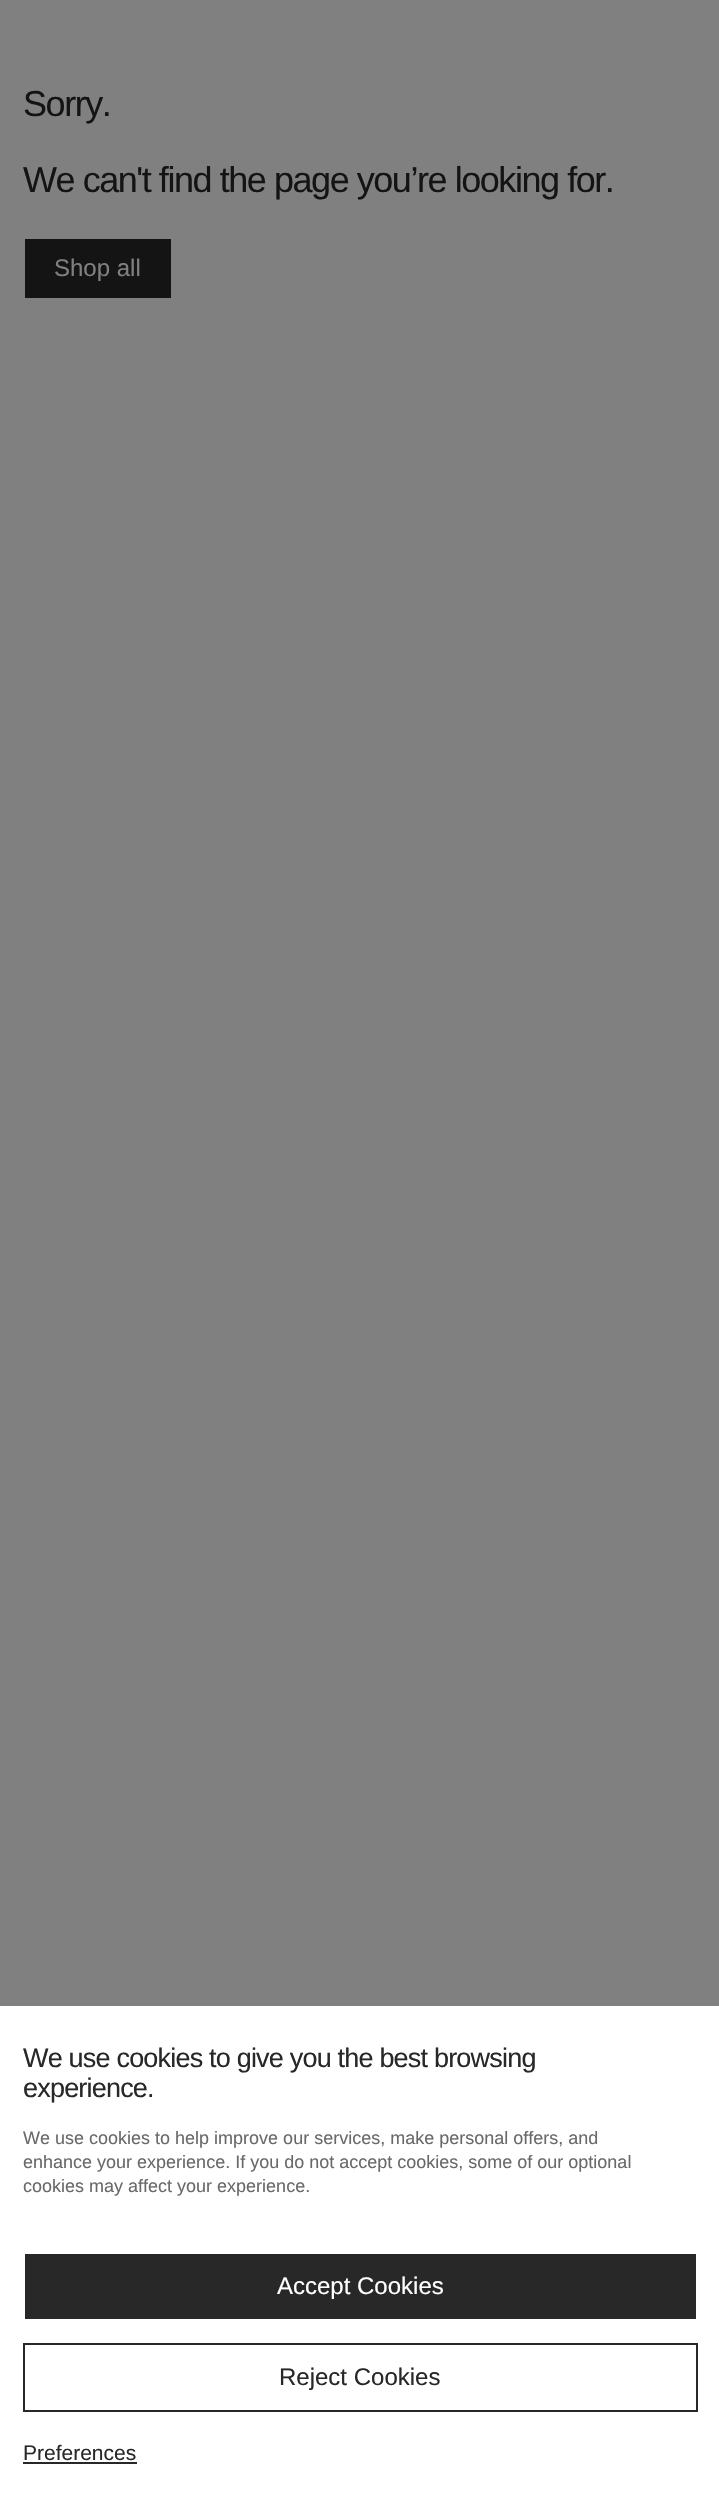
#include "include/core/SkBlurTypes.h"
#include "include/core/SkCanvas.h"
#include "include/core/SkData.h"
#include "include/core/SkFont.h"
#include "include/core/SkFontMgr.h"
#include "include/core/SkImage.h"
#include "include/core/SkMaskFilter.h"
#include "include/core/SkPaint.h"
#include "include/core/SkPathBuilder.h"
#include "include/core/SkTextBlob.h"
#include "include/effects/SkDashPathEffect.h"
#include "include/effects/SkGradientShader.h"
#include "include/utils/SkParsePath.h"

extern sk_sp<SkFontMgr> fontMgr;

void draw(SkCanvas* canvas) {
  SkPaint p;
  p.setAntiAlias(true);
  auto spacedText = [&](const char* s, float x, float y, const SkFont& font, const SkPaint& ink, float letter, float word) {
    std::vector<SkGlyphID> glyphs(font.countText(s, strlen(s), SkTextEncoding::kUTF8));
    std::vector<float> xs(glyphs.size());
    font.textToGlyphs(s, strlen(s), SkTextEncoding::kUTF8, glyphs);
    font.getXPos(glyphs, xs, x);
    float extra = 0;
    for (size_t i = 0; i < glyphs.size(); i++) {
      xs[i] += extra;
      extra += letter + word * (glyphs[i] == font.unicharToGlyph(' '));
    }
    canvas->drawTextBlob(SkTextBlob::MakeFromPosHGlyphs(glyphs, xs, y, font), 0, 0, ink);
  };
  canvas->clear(SkColorSetRGB(128, 128, 128));
  p.setColor(SkColorSetRGB(20, 20, 20));
  canvas->drawRect(SkRect::MakeLTRB(25, 239, 171, 298), p);
  p.setColor(SK_ColorWHITE);
  canvas->drawRect(SkRect::MakeLTRB(0, 2006, 719, 2515), p);
  p.setColor(SkColorSetRGB(40, 40, 40));
  canvas->drawRect(SkRect::MakeLTRB(25, 2254, 696, 2319), p);
  p.setStyle(SkPaint::kStroke_Style);
  p.setStrokeWidth(2);
  canvas->drawRect(SkRect::MakeLTRB(24, 2344, 697, 2411), p);
  p.setStyle(SkPaint::kFill_Style);
  canvas->drawRect(SkRect::MakeLTRB(23, 2462, 137, 2464), p);
  SkFont font1(fontMgr->matchFamilyStyle("Liberation Sans", SkFontStyle::Normal()), 36);
  font1.setSubpixel(true);
  p.setColor(SkColorSetRGB(20, 20, 20));
  spacedText("Sorry.", 23, 116, font1, p, -1.45f, 0);
  spacedText("We can't find the page you’re looking for.", 23, 192, font1, p, -1.45f, 0);
  SkFont font2(fontMgr->matchFamilyStyle("Liberation Sans", SkFontStyle::Normal()), 24);
  font2.setSubpixel(true);
  p.setColor(SkColorSetRGB(128, 128, 128));
  canvas->drawString("Shop all", 54, 276, font2, p);
  SkFont font3(fontMgr->matchFamilyStyle("Liberation Sans", SkFontStyle::Normal()), 27);
  font3.setSubpixel(true);
  p.setColor(SkColorSetRGB(40, 40, 40));
  spacedText("We use cookies to give you the best browsing", 23, 2067, font3, p, -0.8f, 0);
  spacedText("experience.", 23, 2097, font3, p, -0.8f, 0);
  SkFont font4(fontMgr->matchFamilyStyle("Liberation Sans", SkFontStyle::Normal()), 18);
  font4.setSubpixel(true);
  p.setColor(SkColorSetRGB(105, 105, 105));
  canvas->drawString("We use cookies to help improve our services, make personal offers, and", 23, 2144, font4, p);
  canvas->drawString("enhance your experience. If you do not accept cookies, some of our optional", 23, 2168, font4, p);
  canvas->drawString("cookies may affect your experience.", 23, 2192, font4, p);
  p.setColor(SK_ColorWHITE);
  canvas->drawString("Accept Cookies", 277, 2294, font2, p);
  p.setColor(SkColorSetRGB(40, 40, 40));
  canvas->drawString("Reject Cookies", 279, 2385, font2, p);
  SkFont font5(fontMgr->matchFamilyStyle("Liberation Sans", SkFontStyle::Normal()), 21);
  font5.setSubpixel(true);
  canvas->drawString("Preferences", 23, 2460, font5, p);
}
